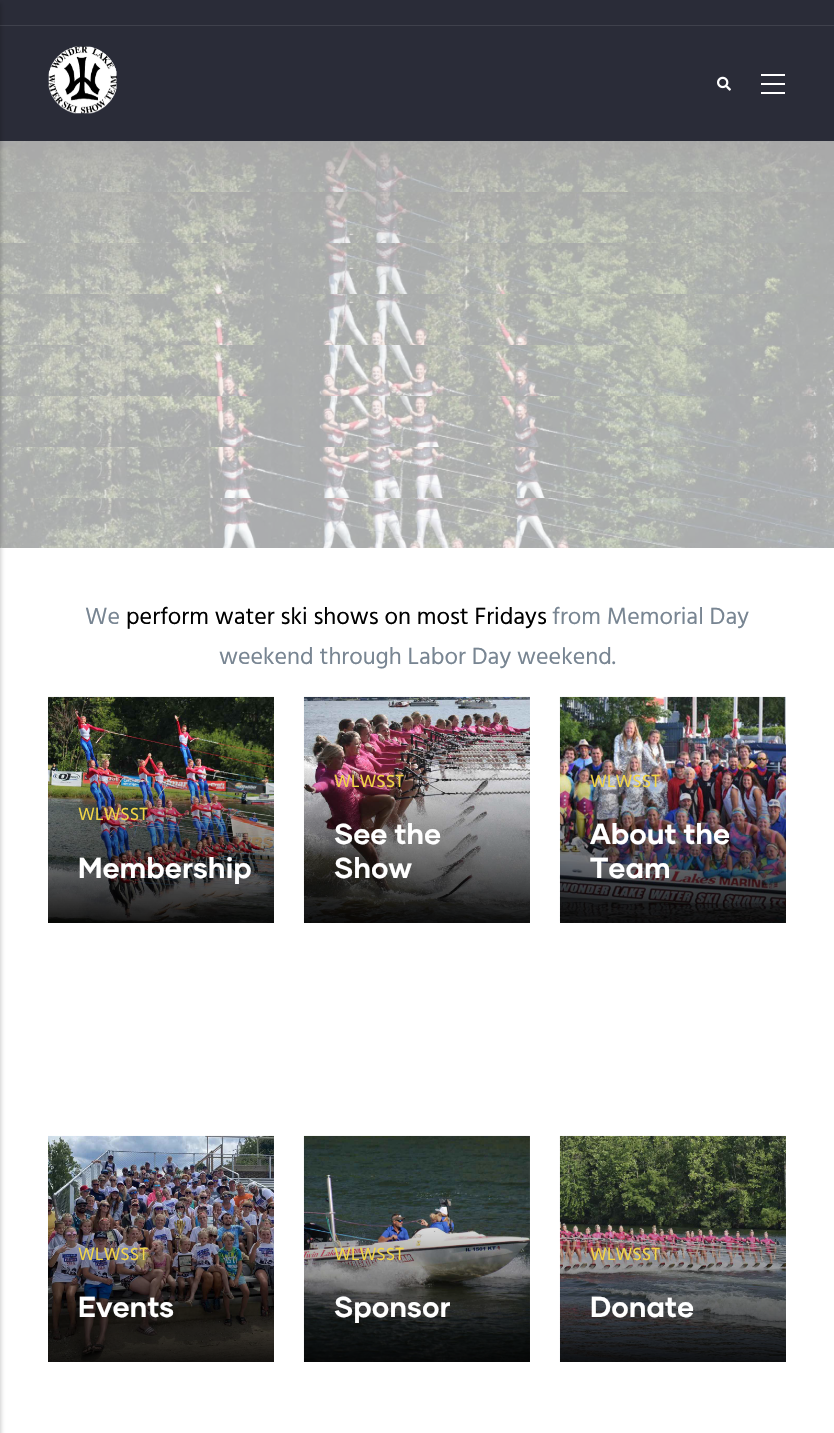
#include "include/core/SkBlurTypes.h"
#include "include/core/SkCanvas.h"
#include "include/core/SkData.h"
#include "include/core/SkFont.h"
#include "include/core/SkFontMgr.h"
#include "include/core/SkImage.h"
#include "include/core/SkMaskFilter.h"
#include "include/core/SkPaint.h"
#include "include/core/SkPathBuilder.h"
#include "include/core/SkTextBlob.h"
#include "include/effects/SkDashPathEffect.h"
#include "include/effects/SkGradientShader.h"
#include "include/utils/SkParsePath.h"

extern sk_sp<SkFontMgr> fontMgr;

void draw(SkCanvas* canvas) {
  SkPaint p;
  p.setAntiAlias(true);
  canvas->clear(SK_ColorWHITE);
  p.setColor(SkColorSetRGB(42, 44, 56));
  canvas->drawRect(SkRect::MakeLTRB(0, 0, 834, 141), p);
  p.setColor(SkColorSetRGB(63, 65, 76));
  canvas->drawRect(SkRect::MakeLTRB(0, 25, 834, 26), p);
  p.setColor(SkColorSetRGB(251, 251, 251));
  canvas->drawRect(SkRect::MakeLTRB(0, 141, 834, 548), p);
  canvas->drawImageRect(SkImages::DeferredFromEncodedData(SkData::MakeFromFileName("images/3.png")), SkRect::MakeLTRB(0, 141, 834, 192), SkSamplingOptions());
  canvas->drawImageRect(SkImages::DeferredFromEncodedData(SkData::MakeFromFileName("images/4.png")), SkRect::MakeLTRB(0, 192, 834, 243), SkSamplingOptions());
  canvas->drawImageRect(SkImages::DeferredFromEncodedData(SkData::MakeFromFileName("images/5.png")), SkRect::MakeLTRB(0, 243, 834, 294), SkSamplingOptions());
  canvas->drawImageRect(SkImages::DeferredFromEncodedData(SkData::MakeFromFileName("images/6.png")), SkRect::MakeLTRB(0, 294, 834, 345), SkSamplingOptions());
  canvas->drawImageRect(SkImages::DeferredFromEncodedData(SkData::MakeFromFileName("images/7.png")), SkRect::MakeLTRB(0, 345, 834, 396), SkSamplingOptions());
  canvas->drawImageRect(SkImages::DeferredFromEncodedData(SkData::MakeFromFileName("images/8.png")), SkRect::MakeLTRB(0, 396, 834, 447), SkSamplingOptions());
  canvas->drawImageRect(SkImages::DeferredFromEncodedData(SkData::MakeFromFileName("images/9.png")), SkRect::MakeLTRB(0, 447, 834, 498), SkSamplingOptions());
  canvas->drawImageRect(SkImages::DeferredFromEncodedData(SkData::MakeFromFileName("images/10.png")), SkRect::MakeLTRB(0, 498, 834, 548), SkSamplingOptions());
  p.setColor(SkColorSetARGB(51, 0, 0, 0));
  p.setMaskFilter(SkMaskFilter::MakeBlur(kNormal_SkBlurStyle, 2));
  canvas->drawRect(SkRect::MakeLTRB(-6, 3, 1, 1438), p);
  p.setMaskFilter(nullptr);
  canvas->drawImageRect(SkImages::DeferredFromEncodedData(SkData::MakeFromFileName("images/1.png")), SkRect::MakeLTRB(717, 76, 731, 91), SkSamplingOptions());
  p.setColor(SK_ColorWHITE);
  canvas->drawRect(SkRect::MakeLTRB(761, 74, 785, 76), p);
  canvas->drawRect(SkRect::MakeLTRB(761, 83, 785, 85), p);
  canvas->drawRect(SkRect::MakeLTRB(761, 92, 785, 94), p);
  canvas->drawImageRect(SkImages::DeferredFromEncodedData(SkData::MakeFromFileName("images/2.png")), SkRect::MakeLTRB(48, 46, 117, 114), SkSamplingOptions());
  canvas->drawImageRect(SkImages::DeferredFromEncodedData(SkData::MakeFromFileName("images/11.png")), SkRect::MakeLTRB(48, 696, 274, 923), SkSamplingOptions());
  {
    const SkColor colors[] = {SkColorSetARGB(0, 0, 0, 0), SkColorSetARGB(230, 0, 0, 0)};
    const float stops[] = {0.3f, 1};
    const SkPoint ends[] = {{161, 697}, {161, 923}};
    p.setShader(SkGradientShader::MakeLinear(ends, colors, stops, 2, SkTileMode::kClamp));
    p.setAlpha(255);
  }
  canvas->drawRect(SkRect::MakeLTRB(48, 769, 274, 923), p);
  canvas->drawImageRect(SkImages::DeferredFromEncodedData(SkData::MakeFromFileName("images/12.png")), SkRect::MakeLTRB(303, 696, 530, 923), SkSamplingOptions());
  {
    const SkColor colors[] = {SkColorSetARGB(0, 0, 0, 0), SkColorSetARGB(230, 0, 0, 0)};
    const float stops[] = {0.3f, 1};
    const SkPoint ends[] = {{417, 697}, {417, 923}};
    p.setShader(SkGradientShader::MakeLinear(ends, colors, stops, 2, SkTileMode::kClamp));
    p.setAlpha(255);
  }
  canvas->drawRect(SkRect::MakeLTRB(304, 769, 530, 923), p);
  canvas->drawImageRect(SkImages::DeferredFromEncodedData(SkData::MakeFromFileName("images/13.png")), SkRect::MakeLTRB(559, 696, 786, 923), SkSamplingOptions());
  {
    const SkColor colors[] = {SkColorSetARGB(0, 0, 0, 0), SkColorSetARGB(230, 0, 0, 0)};
    const float stops[] = {0.3f, 1};
    const SkPoint ends[] = {{673, 697}, {673, 923}};
    p.setShader(SkGradientShader::MakeLinear(ends, colors, stops, 2, SkTileMode::kClamp));
    p.setAlpha(255);
  }
  canvas->drawRect(SkRect::MakeLTRB(560, 769, 786, 923), p);
  canvas->drawImageRect(SkImages::DeferredFromEncodedData(SkData::MakeFromFileName("images/14.png")), SkRect::MakeLTRB(48, 1135, 274, 1362), SkSamplingOptions());
  {
    const SkColor colors[] = {SkColorSetARGB(0, 0, 0, 0), SkColorSetARGB(230, 0, 0, 0)};
    const float stops[] = {0.3f, 1};
    const SkPoint ends[] = {{161, 1136}, {161, 1362}};
    p.setShader(SkGradientShader::MakeLinear(ends, colors, stops, 2, SkTileMode::kClamp));
    p.setAlpha(255);
  }
  canvas->drawRect(SkRect::MakeLTRB(48, 1208, 274, 1362), p);
  canvas->drawImageRect(SkImages::DeferredFromEncodedData(SkData::MakeFromFileName("images/15.png")), SkRect::MakeLTRB(303, 1135, 530, 1362), SkSamplingOptions());
  {
    const SkColor colors[] = {SkColorSetARGB(0, 0, 0, 0), SkColorSetARGB(230, 0, 0, 0)};
    const float stops[] = {0.3f, 1};
    const SkPoint ends[] = {{417, 1136}, {417, 1362}};
    p.setShader(SkGradientShader::MakeLinear(ends, colors, stops, 2, SkTileMode::kClamp));
    p.setAlpha(255);
  }
  canvas->drawRect(SkRect::MakeLTRB(304, 1208, 530, 1362), p);
  canvas->drawImageRect(SkImages::DeferredFromEncodedData(SkData::MakeFromFileName("images/16.png")), SkRect::MakeLTRB(559, 1135, 786, 1362), SkSamplingOptions());
  {
    const SkColor colors[] = {SkColorSetARGB(0, 0, 0, 0), SkColorSetARGB(230, 0, 0, 0)};
    const float stops[] = {0.3f, 1};
    const SkPoint ends[] = {{673, 1136}, {673, 1362}};
    p.setShader(SkGradientShader::MakeLinear(ends, colors, stops, 2, SkTileMode::kClamp));
    p.setAlpha(255);
  }
  canvas->drawRect(SkRect::MakeLTRB(560, 1208, 786, 1362), p);
  SkFont font1(fontMgr->matchFamilyStyle("Hind", SkFontStyle::Normal()), 24);
  font1.setSubpixel(true);
  p.setShader(nullptr);
  p.setColor(SkColorSetRGB(120, 133, 146));
  canvas->drawString("We", 85, 624, font1, p);
  p.setColor(SK_ColorBLACK);
  canvas->drawString("perform water ski shows on most Fridays", 126, 624, font1, p);
  p.setColor(SkColorSetRGB(120, 133, 146));
  canvas->drawString("from Memorial Day", 552, 624, font1, p);
  canvas->drawString("weekend through Labor Day weekend.", 219, 664, font1, p);
  SkFont font2(fontMgr->matchFamilyStyle("Hind", SkFontStyle::Normal()), 18);
  font2.setSubpixel(true);
  p.setColor(SkColorSetRGB(242, 214, 70));
  canvas->drawString("WLWSST", 78, 820, font2, p);
  SkFont font3(fontMgr->matchFamilyStyle("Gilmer", SkFontStyle::Bold()), 28.75f);
  font3.setSubpixel(true);
  p.setColor(SK_ColorWHITE);
  canvas->drawString("Membership", 78, 878, font3, p);
  p.setColor(SkColorSetRGB(242, 214, 70));
  canvas->drawString("WLWSST", 334, 787, font2, p);
  p.setColor(SK_ColorWHITE);
  canvas->drawString("See the", 334, 844, font3, p);
  canvas->drawString("Show", 334, 878, font3, p);
  p.setColor(SkColorSetRGB(242, 214, 70));
  canvas->drawString("WLWSST", 590, 787, font2, p);
  p.setColor(SK_ColorWHITE);
  canvas->drawString("About the", 590, 844, font3, p);
  canvas->drawString("Team", 590, 878, font3, p);
  p.setColor(SkColorSetRGB(242, 214, 70));
  canvas->drawString("WLWSST", 78, 1260, font2, p);
  p.setColor(SK_ColorWHITE);
  canvas->drawString("Events", 78, 1317, font3, p);
  p.setColor(SkColorSetRGB(242, 214, 70));
  canvas->drawString("WLWSST", 334, 1260, font2, p);
  p.setColor(SK_ColorWHITE);
  canvas->drawString("Sponsor", 334, 1317, font3, p);
  p.setColor(SkColorSetRGB(242, 214, 70));
  canvas->drawString("WLWSST", 590, 1260, font2, p);
  p.setColor(SK_ColorWHITE);
  canvas->drawString("Donate", 590, 1317, font3, p);
}
